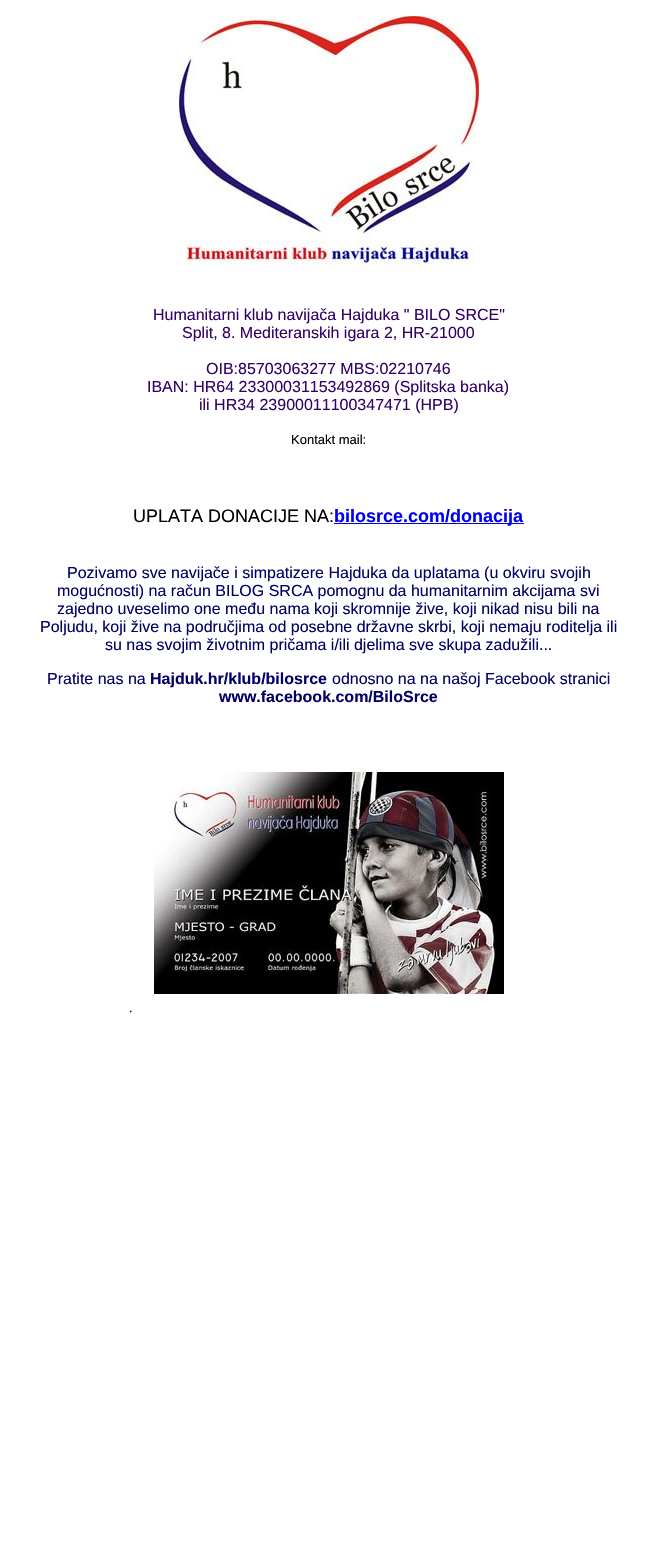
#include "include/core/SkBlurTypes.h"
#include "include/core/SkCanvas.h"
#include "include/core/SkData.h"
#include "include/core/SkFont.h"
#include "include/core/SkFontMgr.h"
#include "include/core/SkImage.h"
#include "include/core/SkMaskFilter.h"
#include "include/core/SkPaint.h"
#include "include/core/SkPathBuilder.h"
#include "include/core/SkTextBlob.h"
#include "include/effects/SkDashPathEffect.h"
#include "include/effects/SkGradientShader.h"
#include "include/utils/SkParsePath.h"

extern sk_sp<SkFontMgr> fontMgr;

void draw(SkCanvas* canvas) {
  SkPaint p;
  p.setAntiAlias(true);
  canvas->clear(SK_ColorWHITE);
  canvas->drawImageRect(SkImages::DeferredFromEncodedData(SkData::MakeFromFileName("images/1.png")), SkRect::MakeLTRB(179, 16, 479, 270), SkSamplingOptions());
  p.setColor(SkColorSetRGB(0, 0, 238));
  canvas->drawRect(SkRect::MakeLTRB(334, 523, 524, 524), p);
  canvas->drawImageRect(SkImages::DeferredFromEncodedData(SkData::MakeFromFileName("images/2.png")), SkRect::MakeLTRB(154, 772, 504, 994), SkSamplingOptions());
  SkFont font1(fontMgr->matchFamilyStyle("Liberation Sans", SkFontStyle::Normal()), 16);
  font1.setSubpixel(true);
  p.setColor(SkColorSetRGB(51, 0, 102));
  canvas->drawString("Humanitarni klub navijača Hajduka \" BILO SRCE\"", 153, 320, font1, p);
  canvas->drawString("Split, 8. Mediteranskih igara 2, HR-21000", 182, 338, font1, p);
  canvas->drawString("OIB:85703063277 MBS:02210746", 206, 374, font1, p);
  canvas->drawString("IBAN: HR64 23300031153492869 (Splitska banka)", 147, 392, font1, p);
  canvas->drawString("ili HR34 23900011100347471 (HPB)", 199, 410, font1, p);
  SkFont font2(fontMgr->matchFamilyStyle("Liberation Sans", SkFontStyle::Normal()), 13);
  font2.setSubpixel(true);
  p.setColor(SK_ColorBLACK);
  canvas->drawString("Kontakt mail:", 291, 444, font2, p);
  SkFont font3(fontMgr->matchFamilyStyle("Liberation Sans", SkFontStyle::Normal()), 18);
  font3.setSubpixel(true);
  canvas->drawString("UPLATA DONACIJE NA:", 133, 522, font3, p);
  SkFont font4(fontMgr->matchFamilyStyle("Liberation Sans", SkFontStyle::Bold()), 18);
  font4.setSubpixel(true);
  p.setColor(SkColorSetRGB(0, 0, 238));
  canvas->drawString("bilosrce.com/donacija", 334, 522, font4, p);
  p.setColor(SkColorSetRGB(0, 0, 102));
  canvas->drawString("Pozivamo sve navijače i simpatizere Hajduka da uplatama (u okviru svojih", 67, 578, font1, p);
  canvas->drawString("mogućnosti) na račun BILOG SRCA pomognu da humanitarnim akcijama svi", 57, 596, font1, p);
  canvas->drawString("zajedno uveselimo one među nama koji skromnije žive, koji nikad nisu bili na", 57, 614, font1, p);
  canvas->drawString("Poljudu, koji žive na područjima od posebne državne skrbi, koji nemaju roditelja ili", 40, 632, font1, p);
  canvas->drawString("su nas svojim životnim pričama i/ili djelima sve skupa zadužili...", 105, 650, font1, p);
  canvas->drawString("Pratite nas na", 47, 684, font1, p);
  SkFont font5(fontMgr->matchFamilyStyle("Liberation Sans", SkFontStyle::Bold()), 16);
  font5.setSubpixel(true);
  canvas->drawString("Hajduk.hr/klub/bilosrce", 150, 684, font5, p);
  canvas->drawString("odnosno na na našoj Facebook stranici", 332, 684, font1, p);
  canvas->drawString("www.facebook.com/BiloSrce", 219, 702, font5, p);
  SkFont font6(fontMgr->matchFamilyStyle("Liberation Serif", SkFontStyle::Normal()), 13);
  font6.setSubpixel(true);
  p.setColor(SK_ColorBLACK);
  canvas->drawString(".", 129, 1012, font6, p);
}
